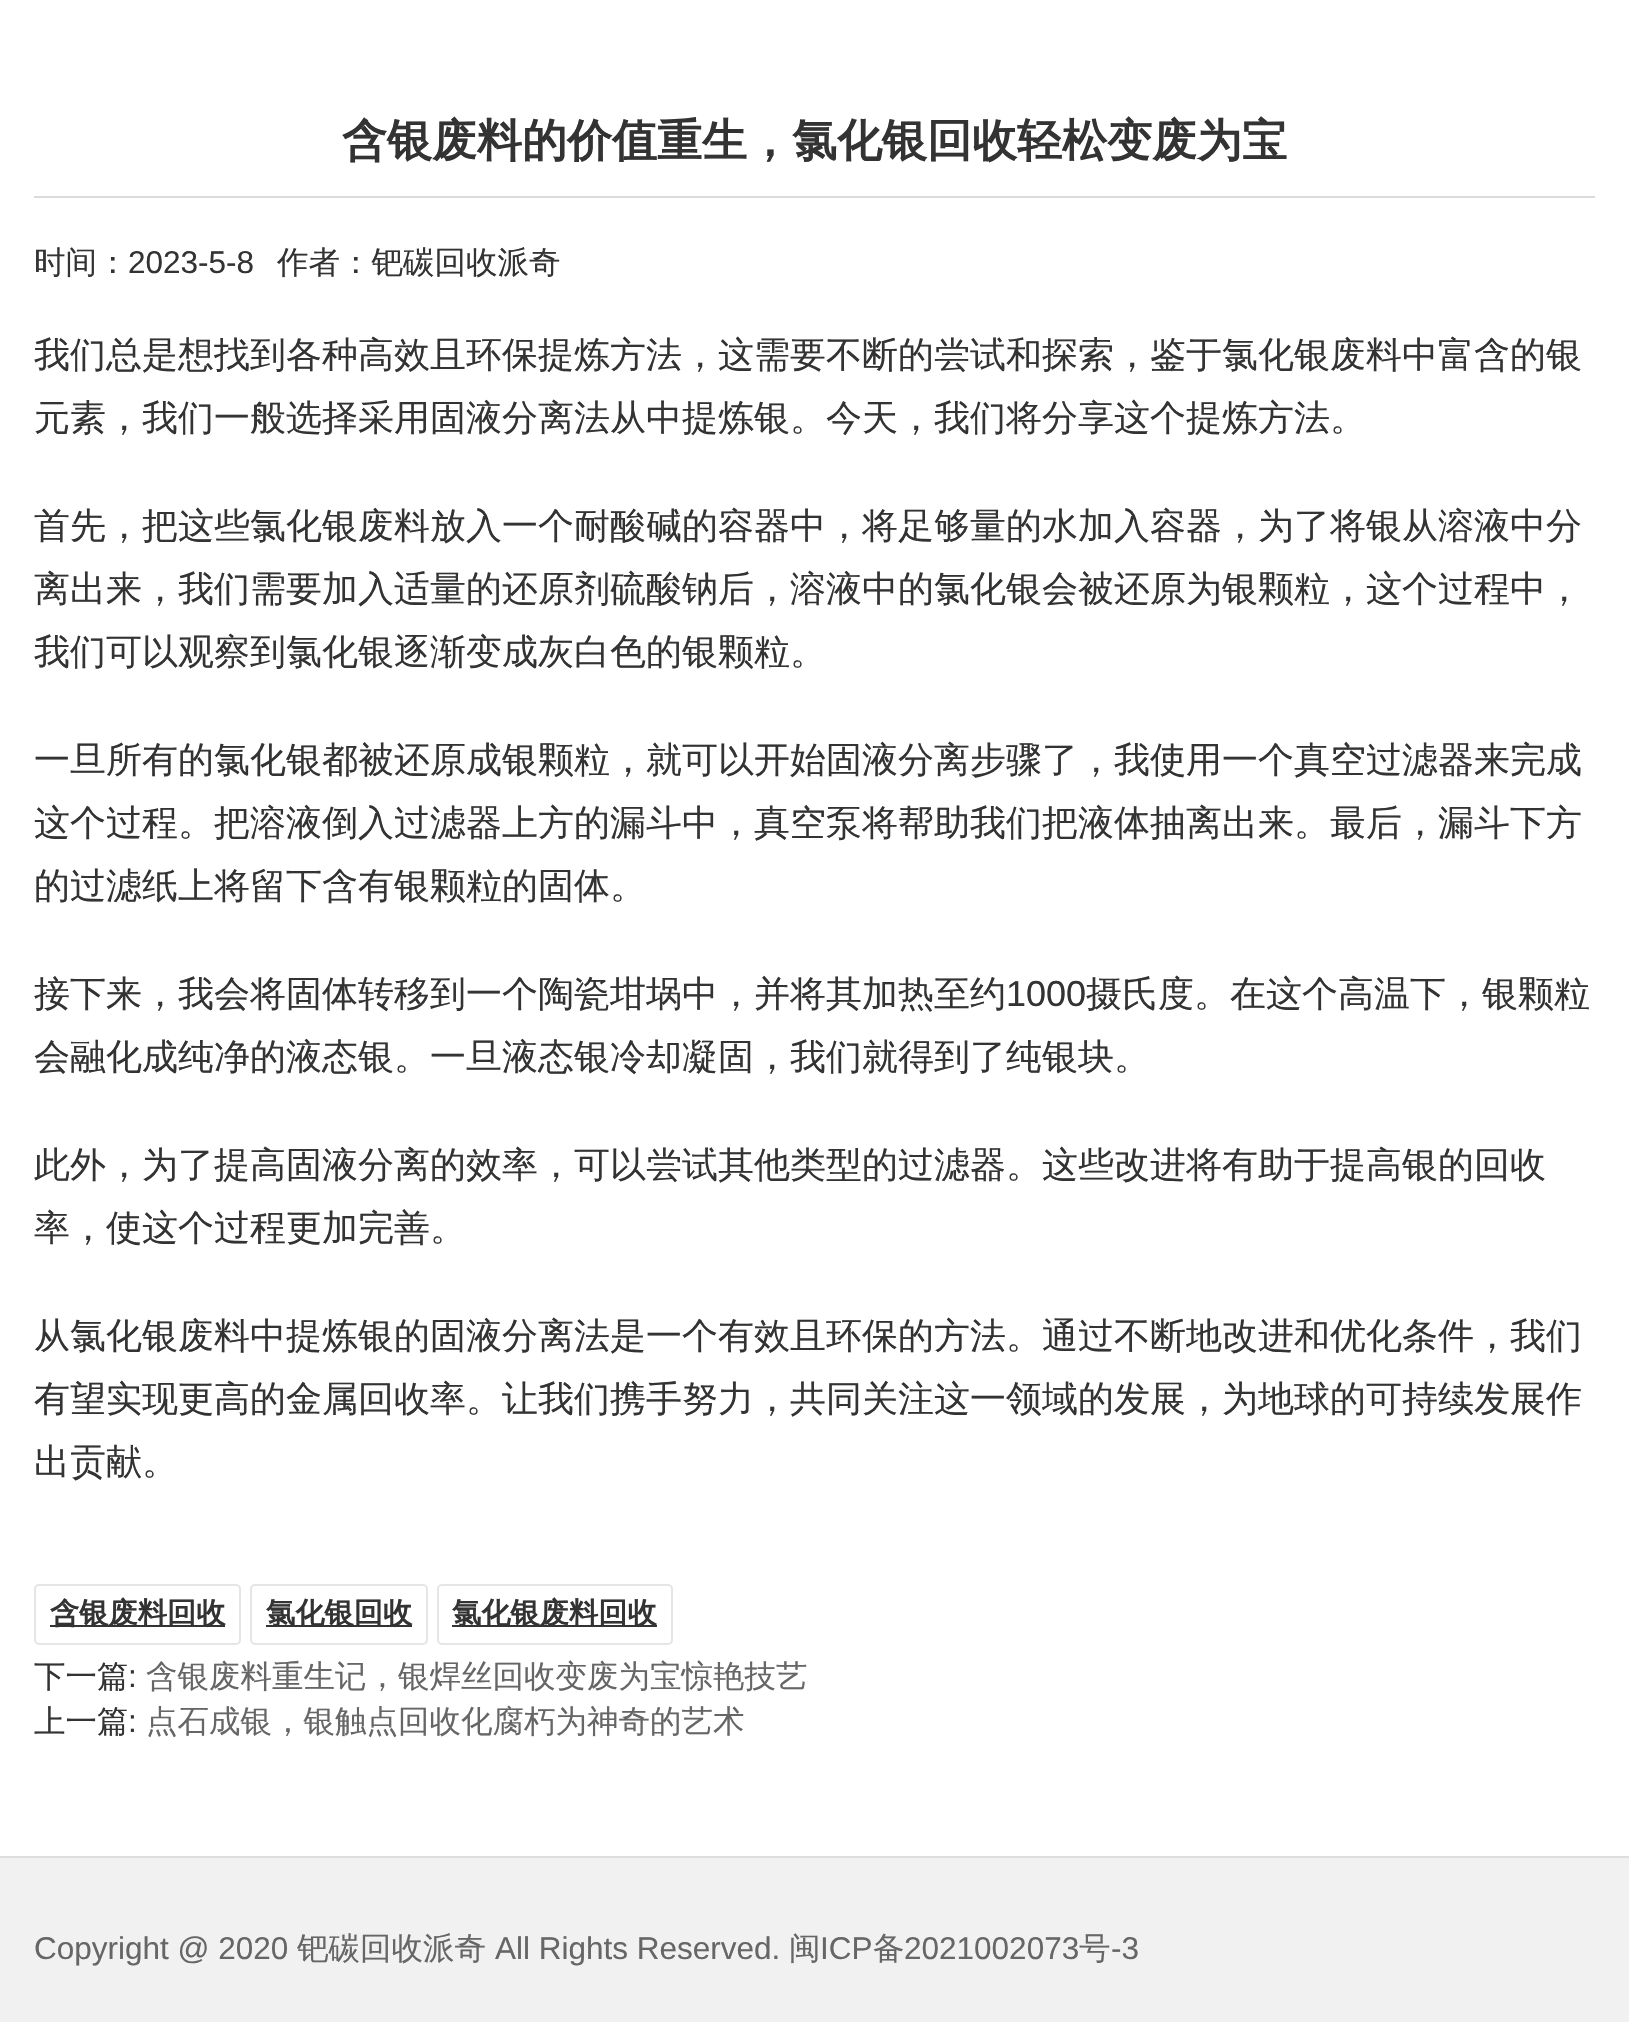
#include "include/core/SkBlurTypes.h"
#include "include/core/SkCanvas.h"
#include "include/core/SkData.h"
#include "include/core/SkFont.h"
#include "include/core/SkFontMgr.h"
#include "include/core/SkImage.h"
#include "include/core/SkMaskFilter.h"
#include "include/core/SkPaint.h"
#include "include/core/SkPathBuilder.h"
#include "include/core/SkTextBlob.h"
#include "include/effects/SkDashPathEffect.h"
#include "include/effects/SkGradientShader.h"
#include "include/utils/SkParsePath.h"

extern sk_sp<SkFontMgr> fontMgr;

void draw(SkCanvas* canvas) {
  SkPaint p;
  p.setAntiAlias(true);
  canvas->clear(SK_ColorWHITE);
  p.setColor(SkColorSetRGB(219, 219, 219));
  canvas->drawRect(SkRect::MakeLTRB(34, 196, 1595, 198), p);
  p.setStyle(SkPaint::kStroke_Style);
  p.setStrokeWidth(2);
  p.setColor(SkColorSetRGB(229, 229, 229));
  canvas->drawRoundRect(SkRect::MakeLTRB(35, 1585, 240, 1644), 4, 4, p);
  p.setStyle(SkPaint::kFill_Style);
  p.setColor(SkColorSetRGB(51, 51, 51));
  canvas->drawRect(SkRect::MakeLTRB(50, 1625, 225, 1627), p);
  p.setStyle(SkPaint::kStroke_Style);
  p.setColor(SkColorSetRGB(229, 229, 229));
  canvas->drawRoundRect(SkRect::MakeLTRB(251, 1585, 427, 1644), 4, 4, p);
  p.setStyle(SkPaint::kFill_Style);
  p.setColor(SkColorSetRGB(51, 51, 51));
  canvas->drawRect(SkRect::MakeLTRB(266, 1625, 412, 1627), p);
  p.setStyle(SkPaint::kStroke_Style);
  p.setColor(SkColorSetRGB(229, 229, 229));
  canvas->drawRoundRect(SkRect::MakeLTRB(438, 1585, 672, 1644), 4, 4, p);
  p.setStyle(SkPaint::kFill_Style);
  p.setColor(SkColorSetRGB(51, 51, 51));
  canvas->drawRect(SkRect::MakeLTRB(452, 1625, 657, 1627), p);
  p.setColor(SkColorSetRGB(241, 241, 241));
  canvas->drawRect(SkRect::MakeLTRB(0, 1858, 1629, 2022), p);
  p.setColor(SkColorSetRGB(221, 221, 221));
  canvas->drawRect(SkRect::MakeLTRB(0, 1856, 1629, 1858), p);
  SkFont font1(fontMgr->matchFamilyStyle("WenQuanYi Zen Hei", SkFontStyle::Bold()), 45);
  font1.setSubpixel(true);
  p.setColor(SkColorSetRGB(51, 51, 51));
  canvas->drawString("含银废料的价值重生，氯化银回收轻松变废为宝", 342, 156, font1, p);
  SkFont font2(fontMgr->matchFamilyStyle("WenQuanYi Zen Hei", SkFontStyle(500, SkFontStyle::kNormal_Width, SkFontStyle::kUpright_Slant)), 31.5f);
  font2.setSubpixel(true);
  canvas->drawString("时间：", 34, 273, font2, p);
  SkFont font3(fontMgr->matchFamilyStyle("Liberation Sans", SkFontStyle::Normal()), 31.5f);
  font3.setSubpixel(true);
  canvas->drawString("2023-5-8", 128, 273, font3, p);
  canvas->drawString("作者：钯碳回收派奇", 277, 273, font2, p);
  SkFont font4(fontMgr->matchFamilyStyle("WenQuanYi Zen Hei", SkFontStyle(500, SkFontStyle::kNormal_Width, SkFontStyle::kUpright_Slant)), 36);
  font4.setSubpixel(true);
  canvas->drawString("我们总是想找到各种高效且环保提炼方法，这需要不断的尝试和探索，鉴于氯化银废料中富含的银", 34, 367, font4, p);
  canvas->drawString("元素，我们一般选择采用固液分离法从中提炼银。今天，我们将分享这个提炼方法。", 34, 430, font4, p);
  canvas->drawString("首先，把这些氯化银废料放入一个耐酸碱的容器中，将足够量的水加入容器，为了将银从溶液中分", 34, 538, font4, p);
  canvas->drawString("离出来，我们需要加入适量的还原剂硫酸钠后，溶液中的氯化银会被还原为银颗粒，这个过程中，", 34, 601, font4, p);
  canvas->drawString("我们可以观察到氯化银逐渐变成灰白色的银颗粒。", 34, 664, font4, p);
  canvas->drawString("一旦所有的氯化银都被还原成银颗粒，就可以开始固液分离步骤了，我使用一个真空过滤器来完成", 34, 772, font4, p);
  canvas->drawString("这个过程。把溶液倒入过滤器上方的漏斗中，真空泵将帮助我们把液体抽离出来。最后，漏斗下方", 34, 835, font4, p);
  canvas->drawString("的过滤纸上将留下含有银颗粒的固体。", 34, 898, font4, p);
  canvas->drawString("接下来，我会将固体转移到一个陶瓷坩埚中，并将其加热至约", 34, 1006, font4, p);
  SkFont font5(fontMgr->matchFamilyStyle("Liberation Sans", SkFontStyle::Normal()), 36);
  font5.setSubpixel(true);
  canvas->drawString("1000", 1006, 1006, font5, p);
  canvas->drawString("摄氏度。在这个高温下，银颗粒", 1086, 1006, font4, p);
  canvas->drawString("会融化成纯净的液态银。一旦液态银冷却凝固，我们就得到了纯银块。", 34, 1069, font4, p);
  canvas->drawString("此外，为了提高固液分离的效率，可以尝试其他类型的过滤器。这些改进将有助于提高银的回收", 34, 1177, font4, p);
  canvas->drawString("率，使这个过程更加完善。", 34, 1240, font4, p);
  canvas->drawString("从氯化银废料中提炼银的固液分离法是一个有效且环保的方法。通过不断地改进和优化条件，我们", 34, 1348, font4, p);
  canvas->drawString("有望实现更高的金属回收率。让我们携手努力，共同关注这一领域的发展，为地球的可持续发展作", 34, 1411, font4, p);
  canvas->drawString("出贡献。", 34, 1474, font4, p);
  SkFont font6(fontMgr->matchFamilyStyle("WenQuanYi Zen Hei", SkFontStyle::Bold()), 29.25f);
  font6.setSubpixel(true);
  canvas->drawString("含银废料回收", 50, 1623, font6, p);
  canvas->drawString("氯化银回收", 266, 1623, font6, p);
  canvas->drawString("氯化银废料回收", 452, 1623, font6, p);
  canvas->drawString("下一篇", 34, 1687, font2, p);
  canvas->drawString(":", 128, 1687, font3, p);
  p.setColor(SkColorSetRGB(102, 102, 102));
  canvas->drawString("含银废料重生记，银焊丝回收变废为宝惊艳技艺", 146, 1687, font2, p);
  p.setColor(SkColorSetRGB(51, 51, 51));
  canvas->drawString("上一篇", 34, 1732, font2, p);
  canvas->drawString(":", 128, 1732, font3, p);
  p.setColor(SkColorSetRGB(102, 102, 102));
  canvas->drawString("点石成银，银触点回收化腐朽为神奇的艺术", 146, 1732, font2, p);
  canvas->drawString("Copyright @ 2020", 34, 1959, font3, p);
  canvas->drawString("钯碳回收派奇", 297, 1959, font2, p);
  canvas->drawString("All Rights Reserved.", 495, 1959, font3, p);
  canvas->drawString("闽", 789, 1959, font2, p);
  canvas->drawString("ICP", 820, 1959, font3, p);
  canvas->drawString("备", 873, 1959, font2, p);
  canvas->drawString("2021002073", 904, 1959, font3, p);
  canvas->drawString("号", 1079, 1959, font2, p);
  canvas->drawString("-3", 1111, 1959, font3, p);
}
